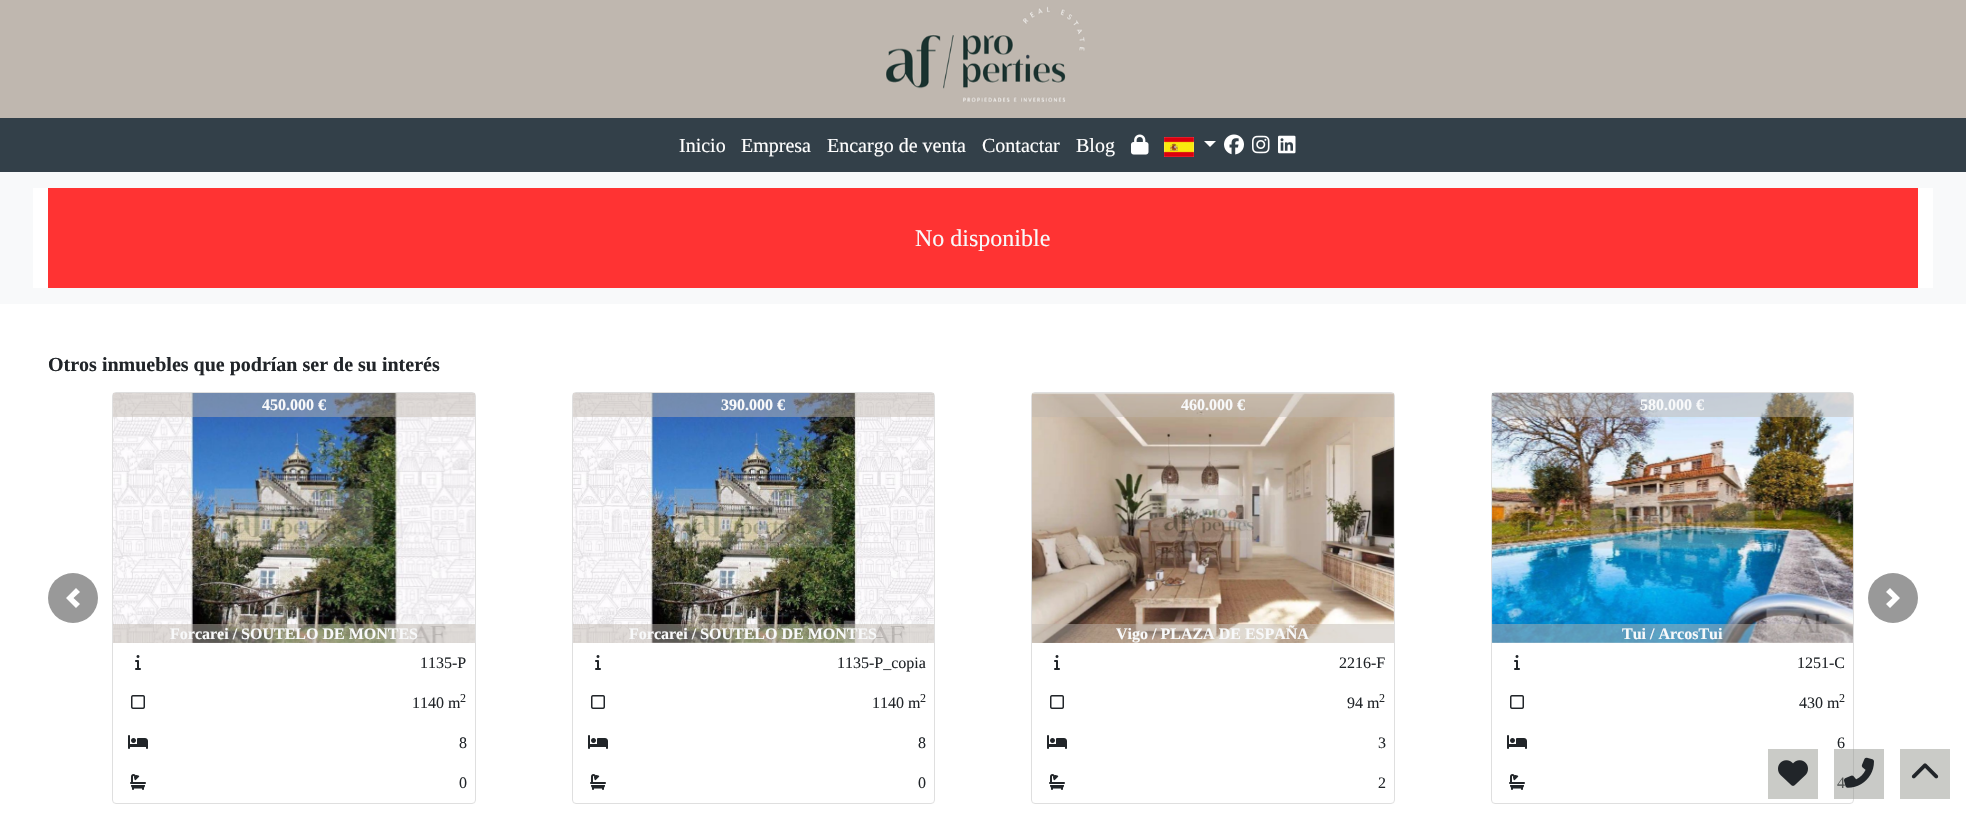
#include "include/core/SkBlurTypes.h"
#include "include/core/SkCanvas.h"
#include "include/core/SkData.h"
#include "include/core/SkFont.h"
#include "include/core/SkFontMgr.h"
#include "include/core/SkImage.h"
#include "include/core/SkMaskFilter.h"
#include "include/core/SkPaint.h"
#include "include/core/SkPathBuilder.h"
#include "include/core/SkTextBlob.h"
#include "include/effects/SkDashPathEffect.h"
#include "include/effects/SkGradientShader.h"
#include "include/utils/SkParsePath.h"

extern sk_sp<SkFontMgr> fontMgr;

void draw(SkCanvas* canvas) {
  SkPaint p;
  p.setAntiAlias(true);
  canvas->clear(SK_ColorWHITE);
  p.setColor(SkColorSetRGB(191, 183, 175));
  canvas->drawRect(SkRect::MakeLTRB(0, 0, 1966, 118), p);
  canvas->drawImageRect(SkImages::DeferredFromEncodedData(SkData::MakeFromFileName("images/1.png")), SkRect::MakeLTRB(885, 6, 1085, 102), SkSamplingOptions());
  p.setColor(SkColorSetRGB(51, 64, 73));
  canvas->drawRect(SkRect::MakeLTRB(0, 118, 1966, 172), p);
  canvas->drawImageRect(SkImages::DeferredFromEncodedData(SkData::MakeFromFileName("images/2.png")), SkRect::MakeLTRB(1131, 134, 1149, 155), SkSamplingOptions());
  canvas->drawImageRect(SkImages::DeferredFromEncodedData(SkData::MakeFromFileName("images/3.png")), SkRect::MakeLTRB(1164, 137, 1194, 157), SkSamplingOptions());
  p.setColor(SK_ColorWHITE);
  canvas->drawPath(SkPathBuilder().moveTo(1204, 141).lineTo(1216, 141).lineTo(1210, 147).close().detach(), p);
  canvas->drawImageRect(SkImages::DeferredFromEncodedData(SkData::MakeFromFileName("images/4.png")), SkRect::MakeLTRB(1224, 134, 1244, 155), SkSamplingOptions());
  canvas->drawImageRect(SkImages::DeferredFromEncodedData(SkData::MakeFromFileName("images/5.png")), SkRect::MakeLTRB(1252, 135, 1270, 154), SkSamplingOptions());
  canvas->drawImageRect(SkImages::DeferredFromEncodedData(SkData::MakeFromFileName("images/6.png")), SkRect::MakeLTRB(1278, 135, 1296, 154), SkSamplingOptions());
  p.setColor(SkColorSetRGB(248, 249, 250));
  canvas->drawRect(SkRect::MakeLTRB(0, 172, 1966, 304), p);
  p.setColor(SK_ColorWHITE);
  canvas->drawRect(SkRect::MakeLTRB(33, 188, 1933, 288), p);
  p.setColor(SkColorSetRGB(255, 51, 51));
  canvas->drawRect(SkRect::MakeLTRB(48, 188, 1918, 288), p);
  p.setColor(SkColorSetRGB(153, 153, 153));
  canvas->drawCircle(73, 598, 25, p);
  p.setColor(SK_ColorWHITE);
  canvas->drawPath(SkPathBuilder().moveTo(76, 588).lineTo(66, 598).lineTo(76, 608).lineTo(80, 604).lineTo(73.5f, 598).lineTo(80, 592).close().detach(), p);
  p.setStyle(SkPaint::kStroke_Style);
  p.setStrokeWidth(1);
  p.setColor(SkColorSetRGB(223, 223, 223));
  canvas->drawRoundRect(SkRect::MakeLTRB(112.5f, 392.5f, 475.5f, 803.5f), 3.5f, 3.5f, p);
  canvas->drawImageRect(SkImages::DeferredFromEncodedData(SkData::MakeFromFileName("images/7.png")), SkRect::MakeLTRB(113, 393, 475, 643), SkSamplingOptions());
  p.setStyle(SkPaint::kFill_Style);
  p.setColor(SkColorSetARGB(120, 191, 183, 175));
  canvas->drawRect(SkRect::MakeLTRB(113, 393, 475, 417), p);
  canvas->drawRect(SkRect::MakeLTRB(113, 624, 475, 643), p);
  canvas->drawImageRect(SkImages::DeferredFromEncodedData(SkData::MakeFromFileName("images/8.png")), SkRect::MakeLTRB(135, 655, 141, 670), SkSamplingOptions());
  canvas->drawImageRect(SkImages::DeferredFromEncodedData(SkData::MakeFromFileName("images/9.png")), SkRect::MakeLTRB(131, 695, 145, 709), SkSamplingOptions());
  canvas->drawImageRect(SkImages::DeferredFromEncodedData(SkData::MakeFromFileName("images/10.png")), SkRect::MakeLTRB(128, 735, 148, 749), SkSamplingOptions());
  canvas->drawImageRect(SkImages::DeferredFromEncodedData(SkData::MakeFromFileName("images/11.png")), SkRect::MakeLTRB(130, 774, 146, 790), SkSamplingOptions());
  p.setStyle(SkPaint::kStroke_Style);
  p.setColor(SkColorSetRGB(223, 223, 223));
  canvas->drawRoundRect(SkRect::MakeLTRB(572.5f, 392.5f, 934.5f, 803.5f), 3.5f, 3.5f, p);
  canvas->drawImageRect(SkImages::DeferredFromEncodedData(SkData::MakeFromFileName("images/12.png")), SkRect::MakeLTRB(573, 393, 934, 643), SkSamplingOptions());
  p.setStyle(SkPaint::kFill_Style);
  p.setColor(SkColorSetARGB(120, 191, 183, 175));
  canvas->drawRect(SkRect::MakeLTRB(573, 393, 934, 417), p);
  canvas->drawRect(SkRect::MakeLTRB(573, 624, 934, 643), p);
  canvas->drawImageRect(SkImages::DeferredFromEncodedData(SkData::MakeFromFileName("images/8.png")), SkRect::MakeLTRB(595, 655, 601, 670), SkSamplingOptions());
  canvas->drawImageRect(SkImages::DeferredFromEncodedData(SkData::MakeFromFileName("images/9.png")), SkRect::MakeLTRB(591, 695, 605, 709), SkSamplingOptions());
  canvas->drawImageRect(SkImages::DeferredFromEncodedData(SkData::MakeFromFileName("images/10.png")), SkRect::MakeLTRB(588, 735, 608, 749), SkSamplingOptions());
  canvas->drawImageRect(SkImages::DeferredFromEncodedData(SkData::MakeFromFileName("images/11.png")), SkRect::MakeLTRB(590, 774, 606, 790), SkSamplingOptions());
  p.setStyle(SkPaint::kStroke_Style);
  p.setColor(SkColorSetRGB(223, 223, 223));
  canvas->drawRoundRect(SkRect::MakeLTRB(1031.5f, 392.5f, 1394.5f, 803.5f), 3.5f, 3.5f, p);
  canvas->drawImageRect(SkImages::DeferredFromEncodedData(SkData::MakeFromFileName("images/13.png")), SkRect::MakeLTRB(1032, 393, 1394, 643), SkSamplingOptions());
  p.setStyle(SkPaint::kFill_Style);
  p.setColor(SkColorSetARGB(120, 191, 183, 175));
  canvas->drawRect(SkRect::MakeLTRB(1032, 393, 1394, 417), p);
  canvas->drawRect(SkRect::MakeLTRB(1032, 624, 1394, 643), p);
  canvas->drawImageRect(SkImages::DeferredFromEncodedData(SkData::MakeFromFileName("images/8.png")), SkRect::MakeLTRB(1054, 655, 1060, 670), SkSamplingOptions());
  canvas->drawImageRect(SkImages::DeferredFromEncodedData(SkData::MakeFromFileName("images/9.png")), SkRect::MakeLTRB(1050, 695, 1064, 709), SkSamplingOptions());
  canvas->drawImageRect(SkImages::DeferredFromEncodedData(SkData::MakeFromFileName("images/10.png")), SkRect::MakeLTRB(1047, 735, 1067, 749), SkSamplingOptions());
  canvas->drawImageRect(SkImages::DeferredFromEncodedData(SkData::MakeFromFileName("images/11.png")), SkRect::MakeLTRB(1049, 774, 1065, 790), SkSamplingOptions());
  p.setStyle(SkPaint::kStroke_Style);
  p.setColor(SkColorSetRGB(223, 223, 223));
  canvas->drawRoundRect(SkRect::MakeLTRB(1491.5f, 392.5f, 1853.5f, 803.5f), 3.5f, 3.5f, p);
  canvas->drawImageRect(SkImages::DeferredFromEncodedData(SkData::MakeFromFileName("images/14.png")), SkRect::MakeLTRB(1492, 393, 1853, 643), SkSamplingOptions());
  p.setStyle(SkPaint::kFill_Style);
  p.setColor(SkColorSetARGB(120, 191, 183, 175));
  canvas->drawRect(SkRect::MakeLTRB(1492, 393, 1853, 417), p);
  canvas->drawRect(SkRect::MakeLTRB(1492, 624, 1853, 643), p);
  canvas->drawImageRect(SkImages::DeferredFromEncodedData(SkData::MakeFromFileName("images/8.png")), SkRect::MakeLTRB(1514, 655, 1520, 670), SkSamplingOptions());
  canvas->drawImageRect(SkImages::DeferredFromEncodedData(SkData::MakeFromFileName("images/9.png")), SkRect::MakeLTRB(1510, 695, 1524, 709), SkSamplingOptions());
  canvas->drawImageRect(SkImages::DeferredFromEncodedData(SkData::MakeFromFileName("images/10.png")), SkRect::MakeLTRB(1507, 735, 1527, 749), SkSamplingOptions());
  canvas->drawImageRect(SkImages::DeferredFromEncodedData(SkData::MakeFromFileName("images/11.png")), SkRect::MakeLTRB(1509, 774, 1525, 790), SkSamplingOptions());
  p.setColor(SkColorSetRGB(153, 153, 153));
  canvas->drawCircle(1893, 598, 25, p);
  p.setColor(SK_ColorWHITE);
  canvas->drawPath(SkPathBuilder().moveTo(1890, 588).lineTo(1886, 592).lineTo(1892.5f, 598).lineTo(1886, 604).lineTo(1890, 608).lineTo(1900, 598).close().detach(), p);
  p.setColor(SkColorSetRGB(202, 203, 199));
  canvas->drawRect(SkRect::MakeLTRB(1768, 749, 1818, 799), p);
  canvas->drawImageRect(SkImages::DeferredFromEncodedData(SkData::MakeFromFileName("images/15.png")), SkRect::MakeLTRB(1778, 760, 1808, 786), SkSamplingOptions());
  canvas->drawRect(SkRect::MakeLTRB(1900, 749, 1950, 799), p);
  canvas->drawImageRect(SkImages::DeferredFromEncodedData(SkData::MakeFromFileName("images/17.png")), SkRect::MakeLTRB(1911, 763, 1939, 779), SkSamplingOptions());
  SkFont font1(fontMgr->matchFamilyStyle("Liberation Serif", SkFontStyle::Normal()), 20);
  font1.setSubpixel(true);
  p.setColor(SK_ColorWHITE);
  canvas->drawString("Inicio", 679, 152, font1, p);
  canvas->drawString("Empresa", 741, 152, font1, p);
  canvas->drawString("Encargo de venta", 827, 152, font1, p);
  canvas->drawString("Contactar", 982, 152, font1, p);
  canvas->drawString("Blog", 1076, 152, font1, p);
  SkFont font2(fontMgr->matchFamilyStyle("Liberation Serif", SkFontStyle::Normal()), 24);
  font2.setSubpixel(true);
  p.setColor(SkColorSetRGB(248, 249, 250));
  canvas->drawString("No disponible", 915, 246, font2, p);
  SkFont font3(fontMgr->matchFamilyStyle("Liberation Serif", SkFontStyle::Bold()), 20);
  font3.setSubpixel(true);
  p.setColor(SkColorSetRGB(33, 37, 41));
  canvas->drawString("Otros inmuebles que podrían ser de su interés", 48, 371, font3, p);
  SkFont font4(fontMgr->matchFamilyStyle("Liberation Serif", SkFontStyle::Bold()), 16);
  font4.setSubpixel(true);
  p.setColor(SkColorSetRGB(248, 249, 250));
  canvas->drawString("450.000 €", 262, 410, font4, p);
  canvas->drawString("Forcarei / SOUTELO DE MONTES", 170, 639, font4, p);
  SkFont font5(fontMgr->matchFamilyStyle("Liberation Serif", SkFontStyle::Normal()), 16);
  font5.setSubpixel(true);
  p.setColor(SkColorSetRGB(33, 37, 41));
  canvas->drawString("1135-P", 420, 668, font5, p);
  canvas->drawString("1140 m", 412, 708, font5, p);
  SkFont font6(fontMgr->matchFamilyStyle("Liberation Serif", SkFontStyle::Normal()), 12);
  font6.setSubpixel(true);
  canvas->drawString("2", 460, 702, font6, p);
  canvas->drawString("8", 459, 748, font5, p);
  canvas->drawString("0", 459, 788, font5, p);
  p.setColor(SkColorSetRGB(248, 249, 250));
  canvas->drawString("390.000 €", 721, 410, font4, p);
  canvas->drawString("Forcarei / SOUTELO DE MONTES", 629, 639, font4, p);
  p.setColor(SkColorSetRGB(33, 37, 41));
  canvas->drawString("1135-P_copia", 837, 668, font5, p);
  canvas->drawString("1140 m", 872, 708, font5, p);
  canvas->drawString("2", 920, 702, font6, p);
  canvas->drawString("8", 918, 748, font5, p);
  canvas->drawString("0", 918, 788, font5, p);
  p.setColor(SkColorSetRGB(248, 249, 250));
  canvas->drawString("460.000 €", 1181, 410, font4, p);
  canvas->drawString("Vigo / PLAZA DE ESPAÑA", 1116, 639, font4, p);
  p.setColor(SkColorSetRGB(33, 37, 41));
  canvas->drawString("2216-F", 1339, 668, font5, p);
  canvas->drawString("94 m", 1347, 708, font5, p);
  canvas->drawString("2", 1379, 702, font6, p);
  canvas->drawString("3", 1378, 748, font5, p);
  canvas->drawString("2", 1378, 788, font5, p);
  p.setColor(SkColorSetRGB(248, 249, 250));
  canvas->drawString("580.000 €", 1640, 410, font4, p);
  canvas->drawString("Tui / ArcosTui", 1622, 639, font4, p);
  p.setColor(SkColorSetRGB(33, 37, 41));
  canvas->drawString("1251-C", 1797, 668, font5, p);
  canvas->drawString("430 m", 1799, 708, font5, p);
  canvas->drawString("2", 1839, 702, font6, p);
  canvas->drawString("6", 1837, 748, font5, p);
  canvas->drawString("4", 1837, 788, font5, p);
  p.setColor(SkColorSetARGB(120, 141, 143, 136));
  canvas->drawRect(SkRect::MakeLTRB(1834, 749, 1884, 799), p);
  canvas->drawImageRect(SkImages::DeferredFromEncodedData(SkData::MakeFromFileName("images/16.png")), SkRect::MakeLTRB(1844, 757, 1874, 788), SkSamplingOptions());
}
